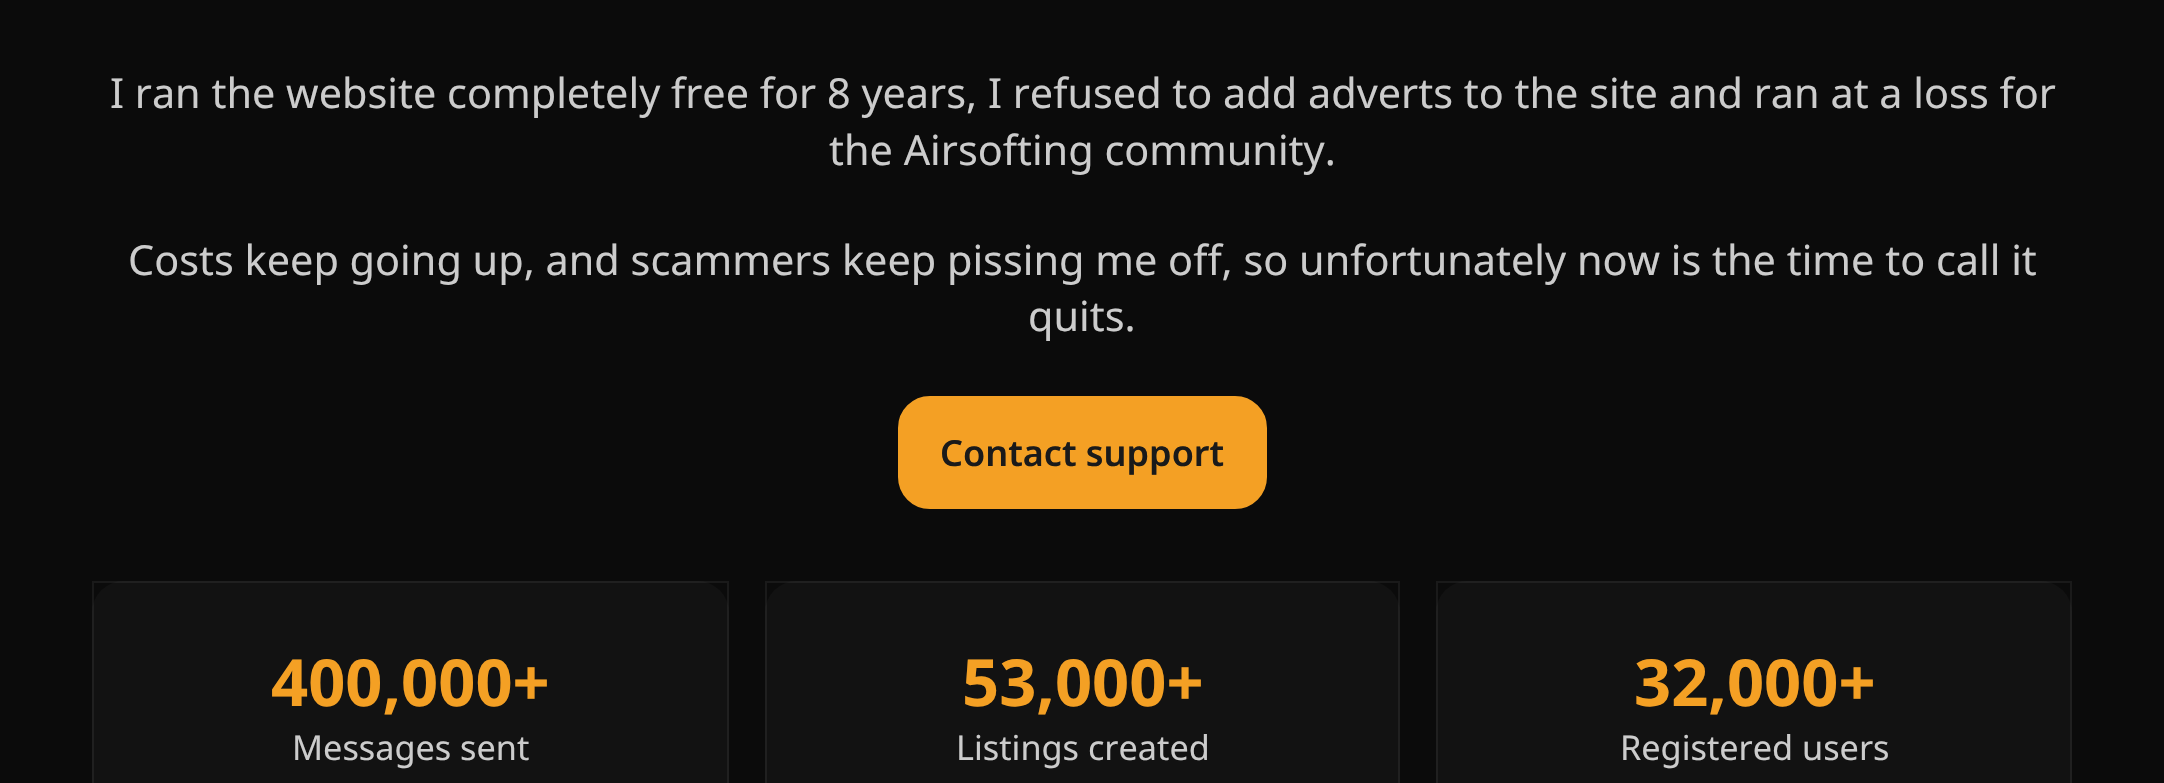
#include "include/core/SkBlurTypes.h"
#include "include/core/SkCanvas.h"
#include "include/core/SkData.h"
#include "include/core/SkFont.h"
#include "include/core/SkFontMgr.h"
#include "include/core/SkImage.h"
#include "include/core/SkMaskFilter.h"
#include "include/core/SkPaint.h"
#include "include/core/SkPathBuilder.h"
#include "include/core/SkTextBlob.h"
#include "include/effects/SkDashPathEffect.h"
#include "include/effects/SkGradientShader.h"
#include "include/utils/SkParsePath.h"

extern sk_sp<SkFontMgr> fontMgr;

void draw(SkCanvas* canvas) {
  SkPaint p;
  p.setAntiAlias(true);
  canvas->clear(SkColorSetRGB(11, 11, 11));
  p.setColor(SkColorSetRGB(244, 160, 36));
  canvas->drawRoundRect(SkRect::MakeLTRB(899, 397, 1266, 508), 31, 31, p);
  p.setStyle(SkPaint::kStroke_Style);
  p.setStrokeWidth(2);
  canvas->drawRoundRect(SkRect::MakeLTRB(899, 397, 1266, 508), 31, 31, p);
  p.setStyle(SkPaint::kFill_Style);
  p.setColor(SkColorSetRGB(18, 18, 18));
  canvas->drawRoundRect(SkRect::MakeLTRB(92, 581, 729, 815), 32, 32, p);
  p.setStyle(SkPaint::kStroke_Style);
  p.setColor(SkColorSetARGB(15, 255, 255, 255));
  canvas->drawRect(SkRect::MakeLTRB(93, 582, 728, 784), p);
  p.setStyle(SkPaint::kFill_Style);
  p.setColor(SkColorSetRGB(18, 18, 18));
  canvas->drawRoundRect(SkRect::MakeLTRB(765, 581, 1400, 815), 32, 32, p);
  p.setStyle(SkPaint::kStroke_Style);
  p.setColor(SkColorSetARGB(15, 255, 255, 255));
  canvas->drawRect(SkRect::MakeLTRB(766, 582, 1399, 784), p);
  p.setStyle(SkPaint::kFill_Style);
  p.setColor(SkColorSetRGB(18, 18, 18));
  canvas->drawRoundRect(SkRect::MakeLTRB(1436, 581, 2072, 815), 32, 32, p);
  p.setStyle(SkPaint::kStroke_Style);
  p.setColor(SkColorSetARGB(15, 255, 255, 255));
  canvas->drawRect(SkRect::MakeLTRB(1437, 582, 2071, 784), p);
  SkFont font1(fontMgr->matchFamilyStyle("Noto Sans", SkFontStyle::Normal()), 41.4f);
  font1.setSubpixel(true);
  p.setStyle(SkPaint::kFill_Style);
  p.setColor(SkColorSetRGB(204, 204, 204));
  canvas->drawString("I ran the website completely free for 8 years, I refused to add adverts to the site and ran at a loss for", 110, 108, font1, p);
  canvas->drawString("the Airsofting community.", 829, 165, font1, p);
  canvas->drawString("Costs keep going up, and scammers keep pissing me off, so unfortunately now is the time to call it", 128, 275, font1, p);
  canvas->drawString("quits.", 1028, 331, font1, p);
  SkFont font2(fontMgr->matchFamilyStyle("Noto Sans", SkFontStyle(600, SkFontStyle::kNormal_Width, SkFontStyle::kUpright_Slant)), 36);
  font2.setSubpixel(true);
  p.setColor(SkColorSetRGB(26, 26, 26));
  canvas->drawString("Contact support", 940, 466, font2, p);
  SkFont font3(fontMgr->matchFamilyStyle("Noto Sans", SkFontStyle::Bold()), 65);
  font3.setSubpixel(true);
  p.setColor(SkColorSetRGB(244, 160, 36));
  canvas->drawString("400,000+", 271, 706, font3, p);
  SkFont font4(fontMgr->matchFamilyStyle("Noto Sans", SkFontStyle::Normal()), 34.25f);
  font4.setSubpixel(true);
  p.setColor(SkColorSetRGB(204, 204, 204));
  canvas->drawString("Messages sent", 292, 760, font4, p);
  p.setColor(SkColorSetRGB(244, 160, 36));
  canvas->drawString("53,000+", 962, 706, font3, p);
  p.setColor(SkColorSetRGB(204, 204, 204));
  canvas->drawString("Listings created", 956, 760, font4, p);
  p.setColor(SkColorSetRGB(244, 160, 36));
  canvas->drawString("32,000+", 1634, 706, font3, p);
  p.setColor(SkColorSetRGB(204, 204, 204));
  canvas->drawString("Registered users", 1620, 760, font4, p);
}
